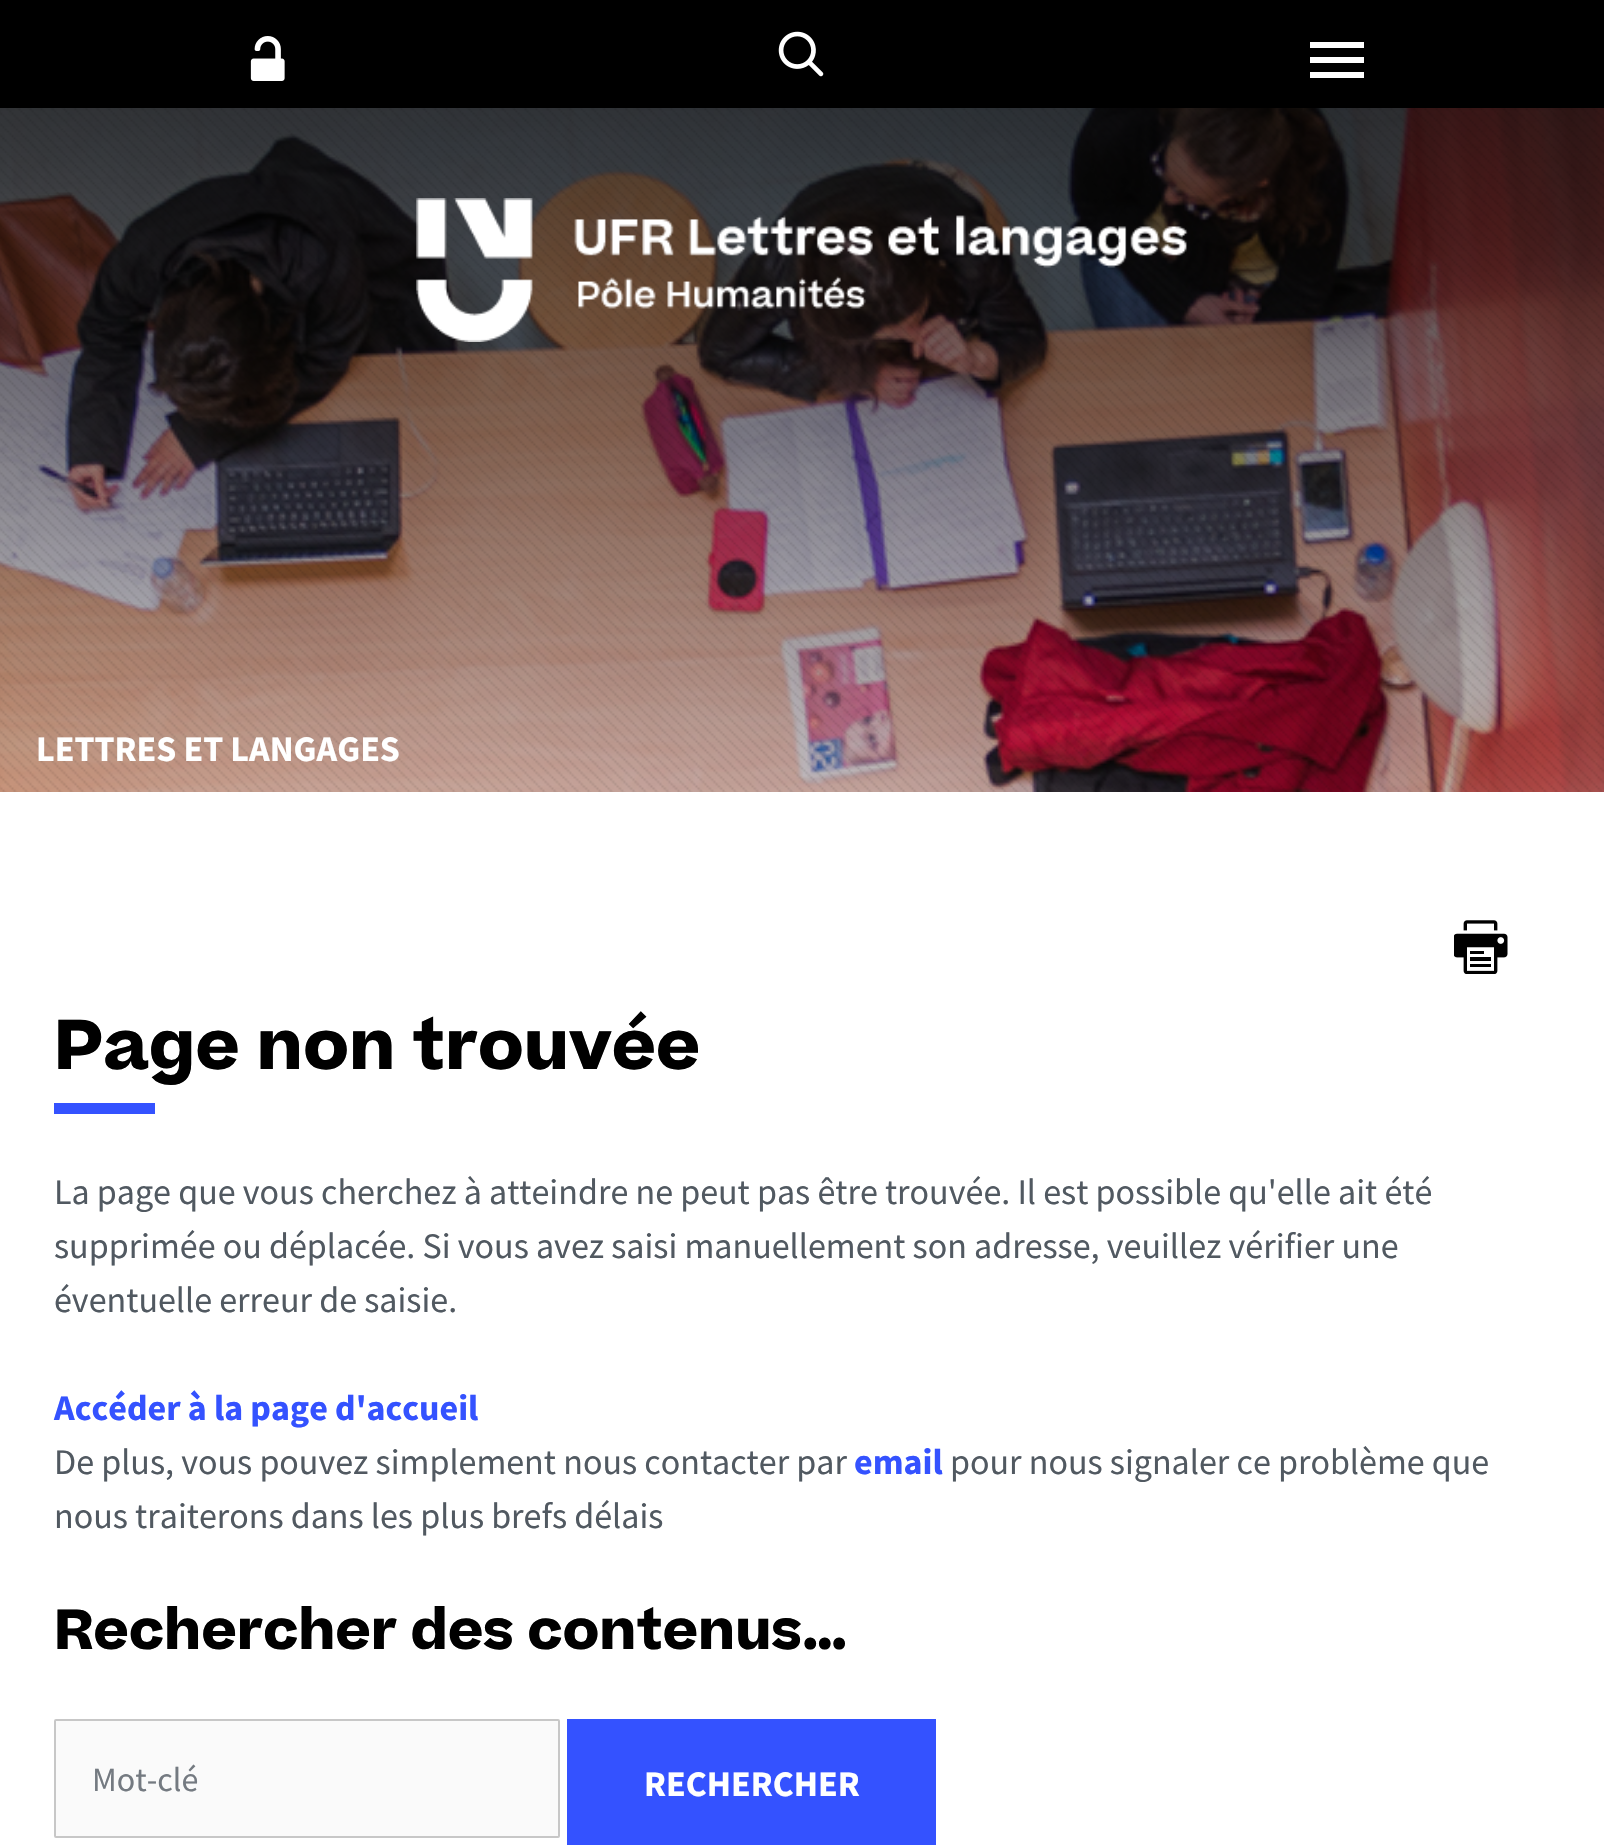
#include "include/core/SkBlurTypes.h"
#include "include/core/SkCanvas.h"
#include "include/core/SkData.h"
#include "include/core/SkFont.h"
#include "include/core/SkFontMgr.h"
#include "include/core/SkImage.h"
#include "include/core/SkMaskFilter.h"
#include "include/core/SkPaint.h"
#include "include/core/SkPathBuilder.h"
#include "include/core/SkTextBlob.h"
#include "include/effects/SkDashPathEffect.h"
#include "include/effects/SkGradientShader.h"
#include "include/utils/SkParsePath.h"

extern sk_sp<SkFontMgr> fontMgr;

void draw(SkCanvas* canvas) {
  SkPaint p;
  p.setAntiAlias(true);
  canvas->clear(SK_ColorWHITE);
  canvas->drawImageRect(SkImages::DeferredFromEncodedData(SkData::MakeFromFileName("images/1.png")), SkRect::MakeLTRB(0, 108, 1604, 792), SkSamplingOptions());
  canvas->drawImageRect(SkImages::DeferredFromEncodedData(SkData::MakeFromFileName("images/2.png")), SkRect::MakeLTRB(0, 108, 1604, 792), SkSamplingOptions());
  p.setColor(SK_ColorBLACK);
  canvas->drawRect(SkRect::MakeLTRB(0, 0, 1604, 108), p);
  canvas->drawImageRect(SkImages::DeferredFromEncodedData(SkData::MakeFromFileName("images/3.png")), SkRect::MakeLTRB(250, 36, 285, 81), SkSamplingOptions());
  canvas->drawImageRect(SkImages::DeferredFromEncodedData(SkData::MakeFromFileName("images/4.png")), SkRect::MakeLTRB(778, 31, 824, 77), SkSamplingOptions());
  p.setColor(SK_ColorWHITE);
  canvas->drawPath(SkPathBuilder().moveTo(1310, 78).lineTo(1364, 78).lineTo(1364, 72).lineTo(1310, 72).close().moveTo(1310, 63).lineTo(1364, 63).lineTo(1364, 57).lineTo(1310, 57).close().moveTo(1310, 42).lineTo(1310, 48).lineTo(1364, 48).lineTo(1364, 42).close().detach(), p);
  canvas->drawImageRect(SkImages::DeferredFromEncodedData(SkData::MakeFromFileName("images/5.png")), SkRect::MakeLTRB(416, 198, 1188, 342), SkSamplingOptions());
  canvas->drawImageRect(SkImages::DeferredFromEncodedData(SkData::MakeFromFileName("images/6.png")), SkRect::MakeLTRB(1454, 920, 1508, 974), SkSamplingOptions());
  p.setColor(SkColorSetRGB(52, 82, 255));
  canvas->drawRect(SkRect::MakeLTRB(54, 1103, 155, 1114), p);
  p.setColor(SkColorSetRGB(250, 250, 250));
  canvas->drawRoundRect(SkRect::MakeLTRB(55, 1720, 559, 1837), 1, 1, p);
  p.setStyle(SkPaint::kStroke_Style);
  p.setStrokeWidth(2);
  p.setColor(SkColorSetRGB(199, 199, 199));
  canvas->drawRoundRect(SkRect::MakeLTRB(55, 1720, 559, 1837), 1, 1, p);
  p.setStyle(SkPaint::kFill_Style);
  p.setColor(SkColorSetRGB(52, 82, 255));
  canvas->drawRect(SkRect::MakeLTRB(567, 1719, 936, 1845), p);
  SkFont font1(fontMgr->matchFamilyStyle("Source Sans Pro", SkFontStyle::Bold()), 36);
  font1.setSubpixel(true);
  p.setColor(SK_ColorWHITE);
  canvas->drawString("LETTRES ET LANGAGES", 36, 761, font1, p);
  SkFont font2(fontMgr->matchFamilyStyle("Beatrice", SkFontStyle::Bold()), 67.5f);
  font2.setSubpixel(true);
  p.setColor(SK_ColorBLACK);
  canvas->drawString("Page non trouvée", 54, 1069, font2, p);
  SkFont font3(fontMgr->matchFamilyStyle("Source Sans Pro", SkFontStyle::Normal()), 36);
  font3.setSubpixel(true);
  p.setColor(SkColorSetRGB(81, 89, 97));
  canvas->drawString("La page que vous cherchez à atteindre ne peut pas être trouvée. Il est possible qu'elle ait été", 54, 1204, font3, p);
  canvas->drawString("supprimée ou déplacée. Si vous avez saisi manuellement son adresse, veuillez vérifier une", 54, 1258, font3, p);
  canvas->drawString("éventuelle erreur de saisie.", 54, 1312, font3, p);
  p.setColor(SkColorSetRGB(52, 82, 255));
  canvas->drawString("Accéder à la page d'accueil", 54, 1420, font1, p);
  p.setColor(SkColorSetRGB(81, 89, 97));
  canvas->drawString("De plus, vous pouvez simplement nous contacter par", 54, 1474, font3, p);
  p.setColor(SkColorSetRGB(52, 82, 255));
  canvas->drawString("email", 854, 1474, font1, p);
  p.setColor(SkColorSetRGB(81, 89, 97));
  canvas->drawString("pour nous signaler ce problème que", 950, 1474, font3, p);
  canvas->drawString("nous traiterons dans les plus brefs délais", 54, 1528, font3, p);
  SkFont font4(fontMgr->matchFamilyStyle("Beatrice", SkFontStyle::Bold()), 54);
  font4.setSubpixel(true);
  p.setColor(SK_ColorBLACK);
  canvas->drawString("Rechercher des contenus…", 54, 1649, font4, p);
  SkFont font5(fontMgr->matchFamilyStyle("Source Sans Pro", SkFontStyle::Normal()), 34);
  font5.setSubpixel(true);
  p.setColor(SkColorSetRGB(116, 122, 129));
  canvas->drawString("Mot-clé", 92, 1791, font5, p);
  p.setColor(SK_ColorWHITE);
  canvas->drawString("RECHERCHER", 644, 1796, font1, p);
}
